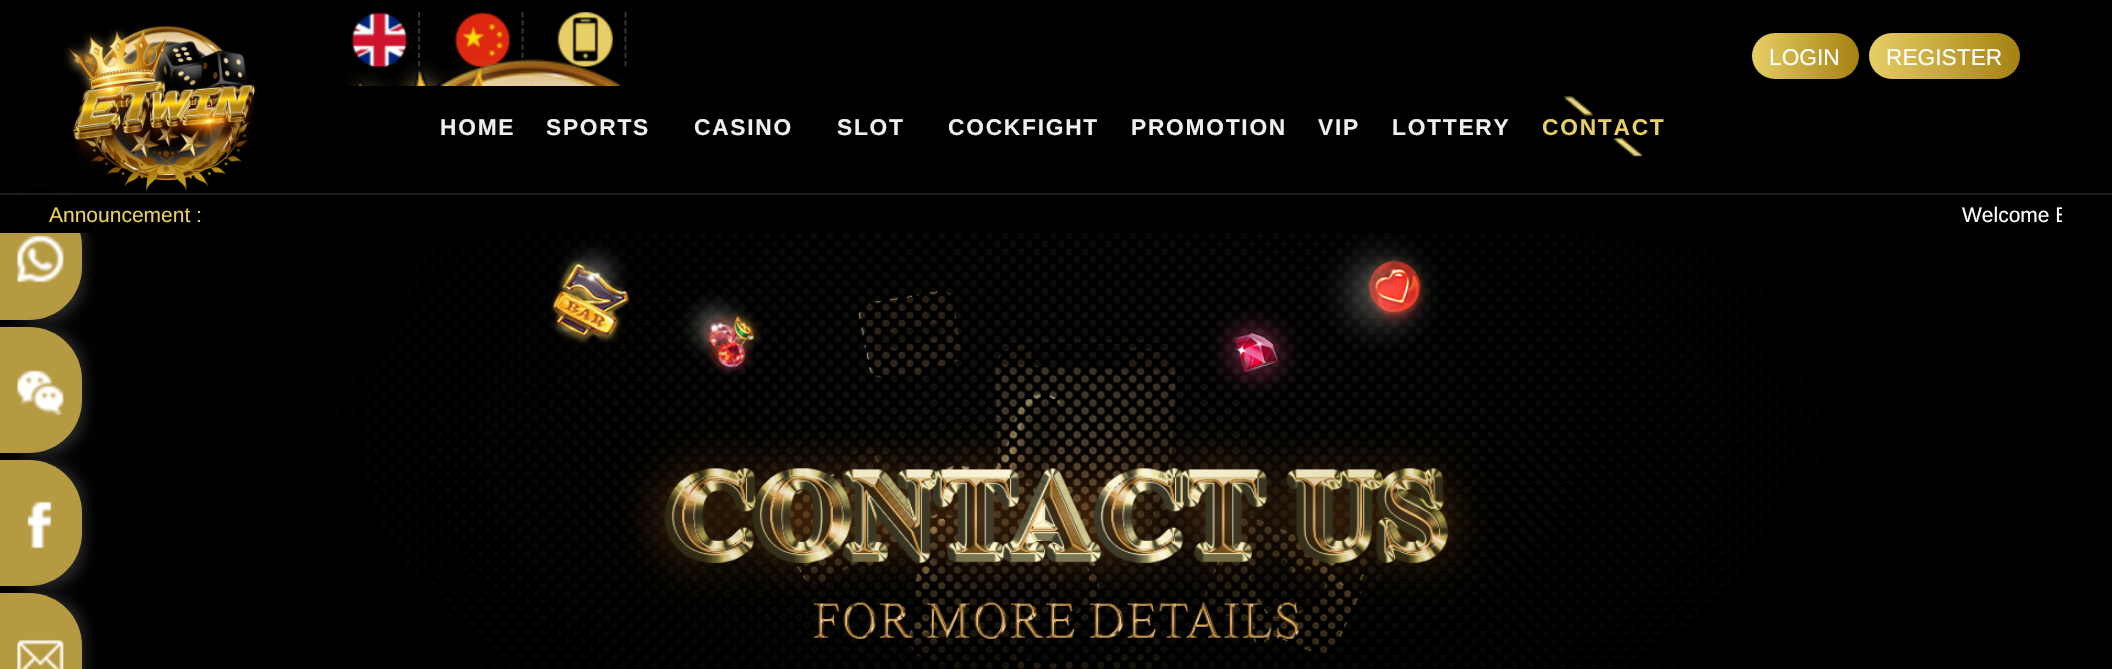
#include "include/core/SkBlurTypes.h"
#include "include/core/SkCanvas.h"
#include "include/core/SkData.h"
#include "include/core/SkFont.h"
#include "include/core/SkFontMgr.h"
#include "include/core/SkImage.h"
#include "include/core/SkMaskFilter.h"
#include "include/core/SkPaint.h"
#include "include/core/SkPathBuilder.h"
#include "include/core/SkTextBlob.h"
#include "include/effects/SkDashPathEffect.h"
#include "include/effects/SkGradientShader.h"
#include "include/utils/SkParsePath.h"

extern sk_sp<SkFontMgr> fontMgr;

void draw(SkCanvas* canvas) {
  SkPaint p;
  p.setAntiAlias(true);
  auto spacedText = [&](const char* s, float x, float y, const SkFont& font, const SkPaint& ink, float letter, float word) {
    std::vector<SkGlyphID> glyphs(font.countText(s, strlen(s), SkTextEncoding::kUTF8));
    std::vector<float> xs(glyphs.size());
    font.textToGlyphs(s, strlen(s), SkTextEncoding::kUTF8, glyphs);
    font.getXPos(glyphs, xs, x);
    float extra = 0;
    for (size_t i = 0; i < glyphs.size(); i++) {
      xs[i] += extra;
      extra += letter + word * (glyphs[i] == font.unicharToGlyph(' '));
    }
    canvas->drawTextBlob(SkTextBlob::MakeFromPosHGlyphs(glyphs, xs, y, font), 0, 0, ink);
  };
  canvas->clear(SK_ColorBLACK);
  p.setColor(SkColorSetRGB(42, 42, 42));
  p.setMaskFilter(SkMaskFilter::MakeBlur(kNormal_SkBlurStyle, 7));
  canvas->drawRoundRect(SkRect::MakeLTRB(2, 196, 84, 322), 53, 53, p);
  p.setMaskFilter(nullptr);
  p.setColor(SK_ColorBLACK);
  canvas->drawRect(SkRect::MakeLTRB(26, 187, 60, 193), p);
  p.setColor(SkColorSetRGB(182, 154, 65));
  canvas->drawPath(SkPathBuilder().moveTo(0, 194).lineTo(29, 194).cubicTo(58.5f, 194, 82, 217.5f, 82, 247).lineTo(82, 267).cubicTo(82, 296.5f, 58.5f, 320, 29, 320).lineTo(0, 320).close().detach(), p);
  p.setColor(SkColorSetRGB(31, 31, 31));
  canvas->drawRect(SkRect::MakeLTRB(0, 193, 2112, 195), p);
  p.setStyle(SkPaint::kStroke_Style);
  p.setStrokeWidth(1.8f);
  p.setColor(SkColorSetRGB(56, 56, 56));
  p.setPathEffect(SkDashPathEffect::Make({{5.25f, 2.92f}}, 0));
  canvas->drawPath(SkPathBuilder().moveTo(419, 12).lineTo(419, 66.5f).detach(), p);
  p.setPathEffect(nullptr);
  canvas->drawImageRect(SkImages::DeferredFromEncodedData(SkData::MakeFromFileName("images/1.png")), SkRect::MakeLTRB(351, 12, 407, 67), SkSamplingOptions());
  p.setPathEffect(SkDashPathEffect::Make({{5.25f, 2.92f}}, 0));
  canvas->drawPath(SkPathBuilder().moveTo(522.5f, 12).lineTo(522.5f, 66.5f).detach(), p);
  p.setPathEffect(nullptr);
  canvas->drawImageRect(SkImages::DeferredFromEncodedData(SkData::MakeFromFileName("images/2.png")), SkRect::MakeLTRB(454, 12, 510, 67), SkSamplingOptions());
  p.setPathEffect(SkDashPathEffect::Make({{5.25f, 2.92f}}, 0));
  canvas->drawPath(SkPathBuilder().moveTo(625.5f, 12).lineTo(625.5f, 66.5f).detach(), p);
  p.setPathEffect(nullptr);
  canvas->drawImageRect(SkImages::DeferredFromEncodedData(SkData::MakeFromFileName("images/3.png")), SkRect::MakeLTRB(557, 12, 613, 67), SkSamplingOptions());
  canvas->drawImageRect(SkImages::DeferredFromEncodedData(SkData::MakeFromFileName("images/4.png")), SkRect::MakeLTRB(346, 59, 622, 86), SkSamplingOptions());
  p.setStyle(SkPaint::kFill_Style);
  {
    const SkColor colors[] = {SkColorSetRGB(164, 129, 17), SkColorSetRGB(231, 206, 102)};
    const float stops[] = {0, 1};
    const SkPoint ends[] = {{1859, 56}, {1752, 56}};
    p.setShader(SkGradientShader::MakeLinear(ends, colors, stops, 2, SkTileMode::kClamp));
    p.setAlpha(255);
  }
  canvas->drawRoundRect(SkRect::MakeLTRB(1752, 33, 1859, 79), 23, 23, p);
  {
    const SkColor colors[] = {SkColorSetRGB(164, 129, 17), SkColorSetRGB(231, 206, 102)};
    const float stops[] = {0, 1};
    const SkPoint ends[] = {{2020, 56}, {1869, 56}};
    p.setShader(SkGradientShader::MakeLinear(ends, colors, stops, 2, SkTileMode::kClamp));
    p.setAlpha(255);
  }
  canvas->drawRoundRect(SkRect::MakeLTRB(1869, 33, 2020, 79), 23, 23, p);
  canvas->drawImageRect(SkImages::DeferredFromEncodedData(SkData::MakeFromFileName("images/5.png")), SkRect::MakeLTRB(64, 25, 256, 191), SkSamplingOptions());
  canvas->drawImageRect(SkImages::DeferredFromEncodedData(SkData::MakeFromFileName("images/6.png")), SkRect::MakeLTRB(1564, 95, 1643, 157), SkSamplingOptions());
  p.setShader(nullptr);
  p.setColor(SK_ColorBLACK);
  canvas->drawRect(SkRect::MakeLTRB(0, 195, 92, 233), p);
  canvas->drawImageRect(SkImages::DeferredFromEncodedData(SkData::MakeFromFileName("images/7.png")), SkRect::MakeLTRB(17, 235, 64, 283), SkSamplingOptions());
  p.setColor(SkColorSetRGB(42, 42, 42));
  p.setMaskFilter(SkMaskFilter::MakeBlur(kNormal_SkBlurStyle, 7));
  canvas->drawRoundRect(SkRect::MakeLTRB(2, 329, 84, 455), 53, 53, p);
  p.setMaskFilter(nullptr);
  p.setColor(SkColorSetRGB(182, 154, 65));
  canvas->drawPath(SkPathBuilder().moveTo(0, 327).lineTo(29, 327).cubicTo(58.5f, 327, 82, 350.5f, 82, 380).lineTo(82, 400).cubicTo(82, 429.5f, 58.5f, 453, 29, 453).lineTo(0, 453).close().detach(), p);
  canvas->drawImageRect(SkImages::DeferredFromEncodedData(SkData::MakeFromFileName("images/8.png")), SkRect::MakeLTRB(17, 370, 64, 416), SkSamplingOptions());
  p.setColor(SkColorSetRGB(42, 42, 42));
  p.setMaskFilter(SkMaskFilter::MakeBlur(kNormal_SkBlurStyle, 7));
  canvas->drawRoundRect(SkRect::MakeLTRB(2, 462, 84, 588), 53, 53, p);
  p.setMaskFilter(nullptr);
  p.setColor(SkColorSetRGB(182, 154, 65));
  canvas->drawPath(SkPathBuilder().moveTo(0, 460).lineTo(29, 460).cubicTo(58.5f, 460, 82, 483.5f, 82, 513).lineTo(82, 533).cubicTo(82, 562.5f, 58.5f, 586, 29, 586).lineTo(0, 586).close().detach(), p);
  canvas->drawImageRect(SkImages::DeferredFromEncodedData(SkData::MakeFromFileName("images/9.png")), SkRect::MakeLTRB(27, 501, 52, 549), SkSamplingOptions());
  p.setColor(SkColorSetRGB(42, 42, 42));
  p.setMaskFilter(SkMaskFilter::MakeBlur(kNormal_SkBlurStyle, 7));
  canvas->drawRoundRect(SkRect::MakeLTRB(2, 595, 84, 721), 53, 53, p);
  p.setMaskFilter(nullptr);
  p.setColor(SkColorSetRGB(182, 154, 65));
  canvas->drawPath(SkPathBuilder().moveTo(0, 593).lineTo(29, 593).cubicTo(58.5f, 593, 82, 616.5f, 82, 646).lineTo(82, 666).cubicTo(82, 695.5f, 58.5f, 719, 29, 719).lineTo(0, 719).close().detach(), p);
  canvas->drawImageRect(SkImages::DeferredFromEncodedData(SkData::MakeFromFileName("images/10.png")), SkRect::MakeLTRB(17, 639, 64, 669), SkSamplingOptions());
  canvas->drawImageRect(SkImages::DeferredFromEncodedData(SkData::MakeFromFileName("images/11.png")), SkRect::MakeLTRB(328, 233, 1890, 669), SkSamplingOptions());
  SkFont font1(fontMgr->matchFamilyStyle("Liberation Sans", SkFontStyle::Normal()), 22.75f);
  font1.setSubpixel(true);
  p.setColor(SK_ColorWHITE);
  canvas->drawString("LOGIN", 1769, 65, font1, p);
  canvas->drawString("REGISTER", 1886, 65, font1, p);
  SkFont font2(fontMgr->matchFamilyStyle("Liberation Sans", SkFontStyle::Bold()), 22.75f);
  font2.setSubpixel(true);
  p.setColor(SkColorSetRGB(239, 239, 239));
  spacedText("HOME", 440, 135, font2, p, 1.75f, 0);
  spacedText("SPORTS", 546, 135, font2, p, 1.75f, 0);
  spacedText("CASINO", 694, 135, font2, p, 1.75f, 0);
  spacedText("SLOT", 837, 135, font2, p, 1.75f, 0);
  spacedText("COCKFIGHT", 948, 135, font2, p, 1.75f, 0);
  spacedText("PROMOTION", 1131, 135, font2, p, 1.75f, 0);
  spacedText("VIP", 1318, 135, font2, p, 1.75f, 0);
  spacedText("LOTTERY", 1392, 135, font2, p, 1.75f, 0);
  p.setColor(SkColorSetRGB(231, 206, 102));
  spacedText("CONTACT", 1542, 135, font2, p, 1.75f, 0);
  SkFont font3(fontMgr->matchFamilyStyle("Liberation Sans", SkFontStyle::Normal()), 21);
  font3.setSubpixel(true);
  canvas->drawString("Announcement :", 49, 222, font3, p);
  canvas->save();
  canvas->clipRect(SkRect::MakeLTRB(201, 203, 2062, 228));
  p.setColor(SK_ColorWHITE);
  canvas->drawString("Welcome B", 1962, 222, font3, p);
  canvas->restore();
}
